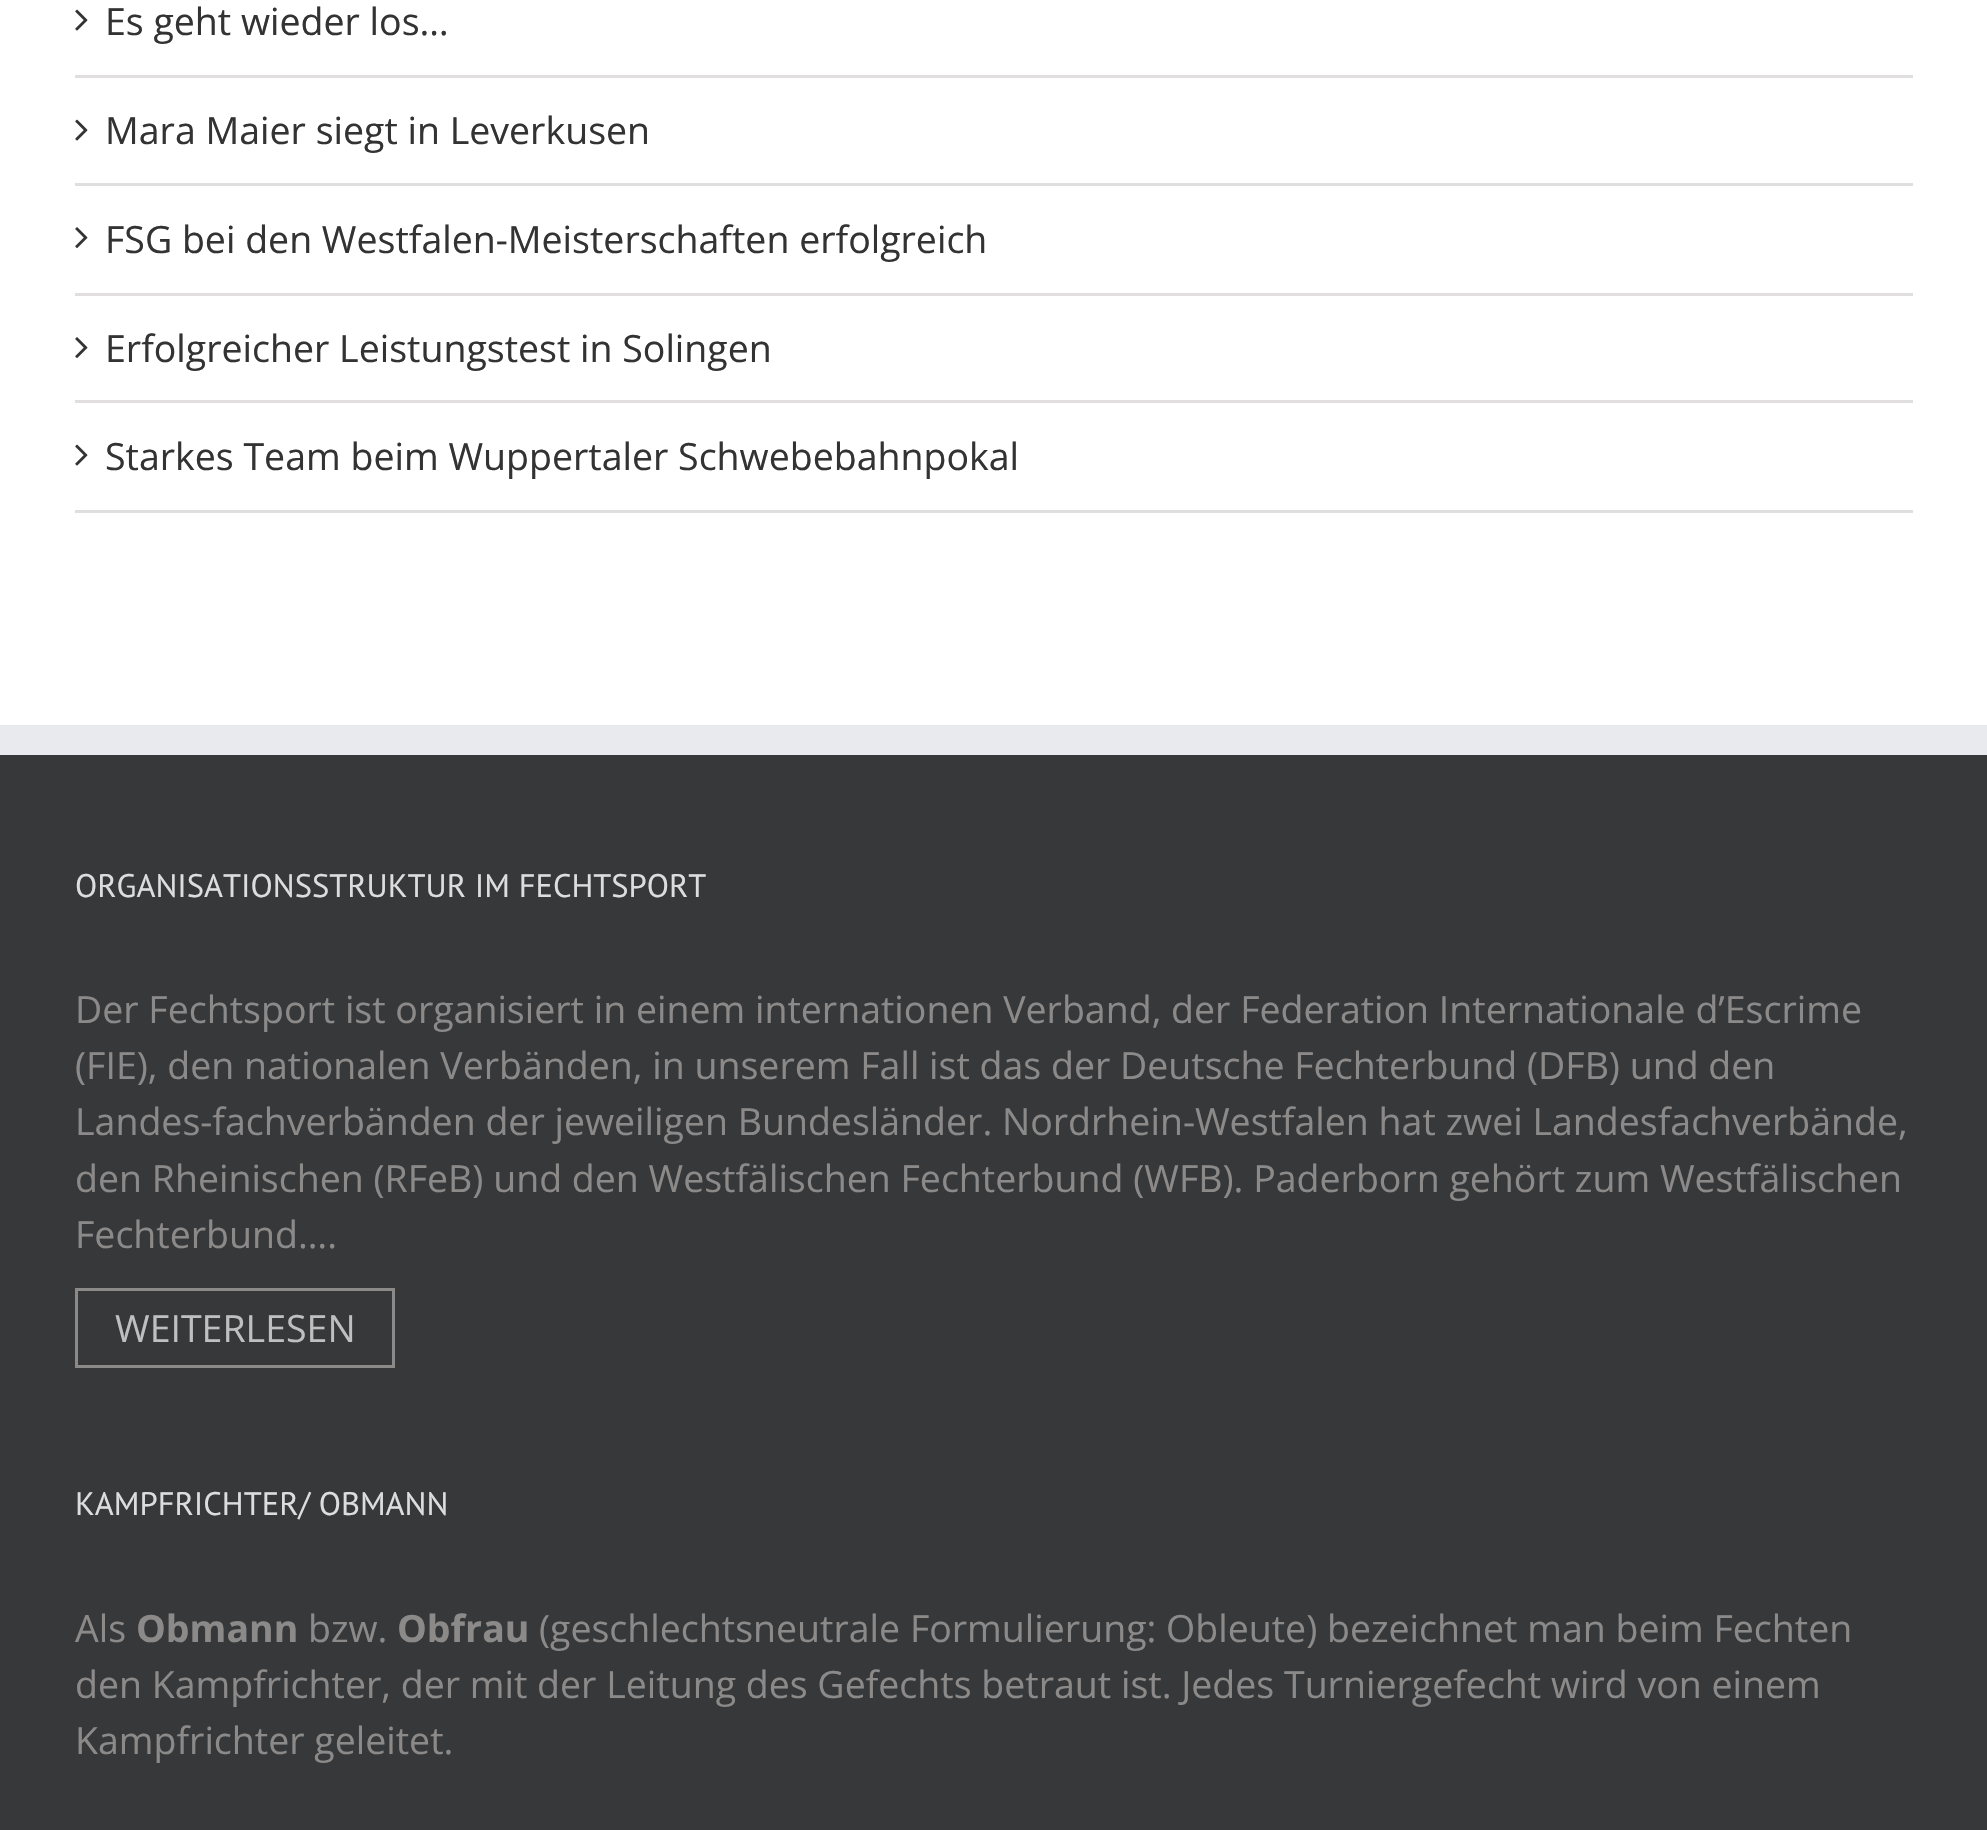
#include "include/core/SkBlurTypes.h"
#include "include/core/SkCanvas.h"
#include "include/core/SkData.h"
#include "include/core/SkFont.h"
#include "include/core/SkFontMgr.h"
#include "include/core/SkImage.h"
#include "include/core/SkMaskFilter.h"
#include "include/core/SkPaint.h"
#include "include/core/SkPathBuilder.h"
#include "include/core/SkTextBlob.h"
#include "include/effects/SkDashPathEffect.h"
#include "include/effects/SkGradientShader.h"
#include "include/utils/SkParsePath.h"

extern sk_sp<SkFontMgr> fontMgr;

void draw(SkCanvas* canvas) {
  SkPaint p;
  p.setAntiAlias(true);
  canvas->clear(SK_ColorWHITE);
  p.setColor(SkColorSetRGB(224, 222, 222));
  canvas->drawRect(SkRect::MakeLTRB(75, 75, 1913, 78), p);
  canvas->drawImageRect(SkImages::DeferredFromEncodedData(SkData::MakeFromFileName("images/1.png")), SkRect::MakeLTRB(75, 9, 88, 31), SkSamplingOptions());
  canvas->drawRect(SkRect::MakeLTRB(75, 183, 1913, 186), p);
  canvas->drawImageRect(SkImages::DeferredFromEncodedData(SkData::MakeFromFileName("images/1.png")), SkRect::MakeLTRB(75, 119, 88, 141), SkSamplingOptions());
  canvas->drawRect(SkRect::MakeLTRB(75, 293, 1913, 296), p);
  canvas->drawImageRect(SkImages::DeferredFromEncodedData(SkData::MakeFromFileName("images/2.png")), SkRect::MakeLTRB(75, 227, 88, 248), SkSamplingOptions());
  canvas->drawRect(SkRect::MakeLTRB(75, 400, 1913, 403), p);
  canvas->drawImageRect(SkImages::DeferredFromEncodedData(SkData::MakeFromFileName("images/2.png")), SkRect::MakeLTRB(75, 337, 88, 358), SkSamplingOptions());
  canvas->drawRect(SkRect::MakeLTRB(75, 510, 1913, 513), p);
  canvas->drawImageRect(SkImages::DeferredFromEncodedData(SkData::MakeFromFileName("images/1.png")), SkRect::MakeLTRB(75, 444, 88, 466), SkSamplingOptions());
  p.setColor(SkColorSetRGB(54, 56, 57));
  canvas->drawRect(SkRect::MakeLTRB(0, 755, 1987, 1830), p);
  p.setColor(SkColorSetRGB(233, 234, 238));
  canvas->drawRect(SkRect::MakeLTRB(0, 725, 1987, 755), p);
  p.setStyle(SkPaint::kStroke_Style);
  p.setStrokeWidth(3);
  p.setColor(SkColorSetRGB(140, 137, 137));
  canvas->drawRect(SkRect::MakeLTRB(76.5f, 1289.5f, 393.5f, 1366.5f), p);
  SkFont font1(fontMgr->matchFamilyStyle("Open Sans", SkFontStyle::Normal()), 37.5f);
  font1.setSubpixel(true);
  p.setStyle(SkPaint::kFill_Style);
  p.setColor(SkColorSetRGB(51, 51, 51));
  canvas->drawString("Es geht wieder los…", 105, 35, font1, p);
  canvas->drawString("Mara Maier siegt in Leverkusen", 105, 144, font1, p);
  canvas->drawString("FSG bei den Westfalen-Meisterschaften erfolgreich", 105, 253, font1, p);
  canvas->drawString("Erfolgreicher Leistungstest in Solingen", 105, 362, font1, p);
  canvas->drawString("Starkes Team beim Wuppertaler Schwebebahnpokal", 105, 470, font1, p);
  SkFont font2(fontMgr->matchFamilyStyle("PT Sans", SkFontStyle::Normal()), 32.5f);
  font2.setSubpixel(true);
  p.setColor(SkColorSetRGB(221, 221, 221));
  canvas->drawString("ORGANISATIONSSTRUKTUR IM FECHTSPORT", 75, 897, font2, p);
  p.setColor(SkColorSetRGB(140, 137, 137));
  canvas->drawString("Der Fechtsport ist organisiert in einem internationen Verband, der Federation Internationale d’Escrime", 75, 1023, font1, p);
  canvas->drawString("(FIE), den nationalen Verbänden, in unserem Fall ist das der Deutsche Fechterbund (DFB) und den", 75, 1079, font1, p);
  canvas->drawString("Landes-fachverbänden der jeweiligen Bundesländer. Nordrhein-Westfalen hat zwei Landesfachverbände,", 75, 1135, font1, p);
  canvas->drawString("den Rheinischen (RFeB) und den Westfälischen Fechterbund (WFB). Paderborn gehört zum Westfälischen", 75, 1192, font1, p);
  canvas->drawString("Fechterbund….", 75, 1248, font1, p);
  p.setColor(SkColorSetRGB(191, 191, 191));
  canvas->drawString("WEITERLESEN", 115, 1342, font1, p);
  p.setColor(SkColorSetRGB(221, 221, 221));
  canvas->drawString("KAMPFRICHTER/ OBMANN", 75, 1515, font2, p);
  p.setColor(SkColorSetRGB(140, 137, 137));
  canvas->drawString("Als", 75, 1642, font1, p);
  SkFont font3(fontMgr->matchFamilyStyle("Open Sans", SkFontStyle::Bold()), 37.5f);
  font3.setSubpixel(true);
  canvas->drawString("Obmann", 136, 1642, font3, p);
  canvas->drawString("bzw.", 308, 1642, font1, p);
  canvas->drawString("Obfrau", 397, 1642, font3, p);
  canvas->drawString("(geschlechtsneutrale Formulierung: Obleute) bezeichnet man beim Fechten", 539, 1642, font1, p);
  canvas->drawString("den Kampfrichter, der mit der Leitung des Gefechts betraut ist. Jedes Turniergefecht wird von einem", 75, 1698, font1, p);
  canvas->drawString("Kampfrichter geleitet.", 75, 1754, font1, p);
}
